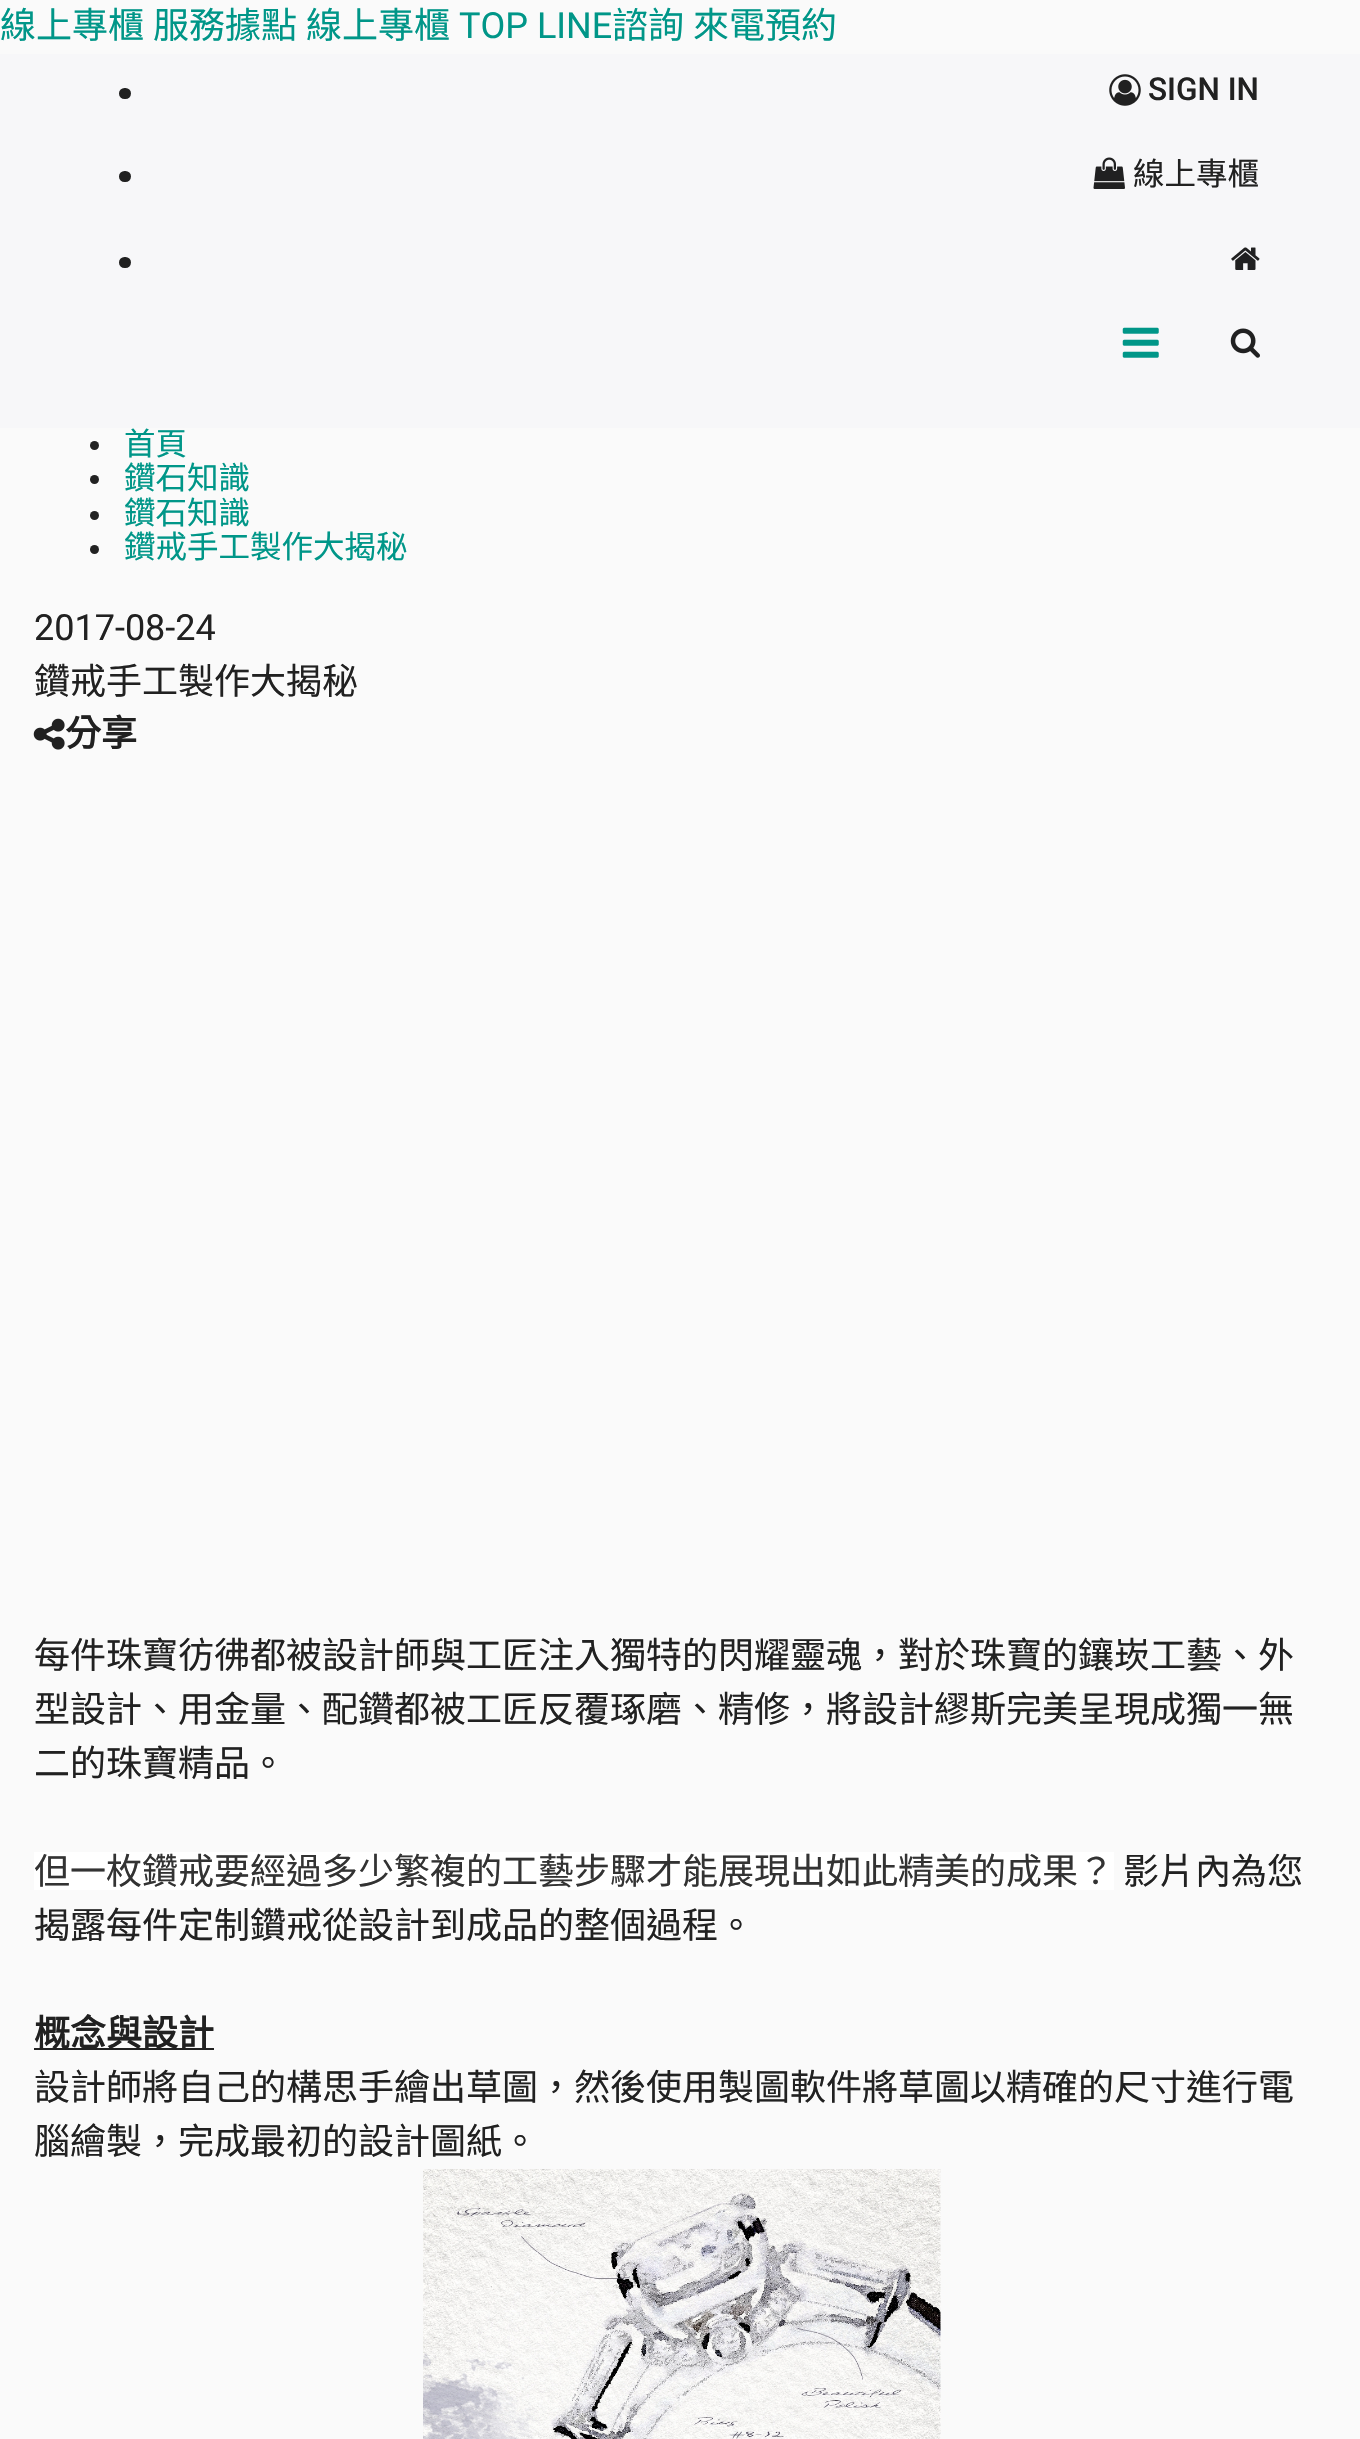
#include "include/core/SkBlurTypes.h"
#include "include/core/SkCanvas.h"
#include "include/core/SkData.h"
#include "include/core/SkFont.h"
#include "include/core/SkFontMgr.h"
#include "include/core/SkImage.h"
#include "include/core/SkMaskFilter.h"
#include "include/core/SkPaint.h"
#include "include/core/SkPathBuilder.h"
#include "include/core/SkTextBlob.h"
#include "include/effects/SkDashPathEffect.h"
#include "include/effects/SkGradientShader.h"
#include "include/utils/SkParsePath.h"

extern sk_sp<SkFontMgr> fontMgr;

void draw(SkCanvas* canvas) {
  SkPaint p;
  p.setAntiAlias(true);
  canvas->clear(SkColorSetRGB(250, 250, 250));
  p.setColor(SkColorSetRGB(247, 247, 249));
  canvas->drawRect(SkRect::MakeLTRB(0, 54, 1360, 428), p);
  p.setColor(SkColorSetRGB(32, 32, 32));
  canvas->drawRoundRect(SkRect::MakeLTRB(119, 88, 131, 99), 5.5f, 5.5f, p);
  canvas->drawImageRect(SkImages::DeferredFromEncodedData(SkData::MakeFromFileName("images/1.png")), SkRect::MakeLTRB(1109, 74, 1141, 106), SkSamplingOptions());
  canvas->drawRoundRect(SkRect::MakeLTRB(119, 171, 131, 182), 5.5f, 5.5f, p);
  canvas->drawImageRect(SkImages::DeferredFromEncodedData(SkData::MakeFromFileName("images/2.png")), SkRect::MakeLTRB(1093, 157, 1125, 189), SkSamplingOptions());
  canvas->drawRoundRect(SkRect::MakeLTRB(119, 257, 131, 268), 5.5f, 5.5f, p);
  canvas->drawImageRect(SkImages::DeferredFromEncodedData(SkData::MakeFromFileName("images/3.png")), SkRect::MakeLTRB(1231, 247, 1260, 270), SkSamplingOptions());
  canvas->drawImageRect(SkImages::DeferredFromEncodedData(SkData::MakeFromFileName("images/4.png")), SkRect::MakeLTRB(1122, 327, 1159, 358), SkSamplingOptions());
  canvas->drawImageRect(SkImages::DeferredFromEncodedData(SkData::MakeFromFileName("images/5.png")), SkRect::MakeLTRB(1230, 328, 1260, 358), SkSamplingOptions());
  p.setColor(SkColorSetRGB(33, 33, 33));
  canvas->drawCircle(94.5f, 445.5f, 4.5f, p);
  canvas->drawCircle(94.5f, 479.5f, 4.5f, p);
  canvas->drawCircle(94.5f, 515.5f, 4.5f, p);
  canvas->drawCircle(94.5f, 549.5f, 4.5f, p);
  canvas->drawImageRect(SkImages::DeferredFromEncodedData(SkData::MakeFromFileName("images/6.png")), SkRect::MakeLTRB(33, 718, 65, 750), SkSamplingOptions());
  p.setColor(SK_ColorWHITE);
  canvas->drawRect(SkRect::MakeLTRB(34, 1852, 1114, 1890), p);
  p.setColor(SkColorSetRGB(33, 33, 33));
  canvas->drawRect(SkRect::MakeLTRB(34, 2048, 214, 2050), p);
  canvas->drawImageRect(SkImages::DeferredFromEncodedData(SkData::MakeFromFileName("images/7.png")), SkRect::MakeLTRB(423, 2169, 941, 2439), SkSamplingOptions());
  SkFont font1(fontMgr->matchFamilyStyle("Noto Sans CJK TC", SkFontStyle::Normal()), 36);
  font1.setSubpixel(true);
  p.setColor(SkColorSetRGB(0, 150, 136));
  canvas->drawString("線上專櫃", 0, 38, font1, p);
  canvas->drawString("服務據點", 153, 38, font1, p);
  canvas->drawString("線上專櫃", 306, 38, font1, p);
  SkFont font2(fontMgr->matchFamilyStyle("Roboto", SkFontStyle::Normal()), 36);
  font2.setSubpixel(true);
  canvas->drawString("TOP LINE", 459, 38, font2, p);
  canvas->drawString("諮詢", 612, 38, font1, p);
  canvas->drawString("來電預約", 693, 38, font1, p);
  SkFont font3(fontMgr->matchFamilyStyle("Roboto", SkFontStyle(500, SkFontStyle::kNormal_Width, SkFontStyle::kUpright_Slant)), 31.5f);
  font3.setSubpixel(true);
  p.setColor(SkColorSetRGB(33, 33, 33));
  canvas->drawString("SIGN IN", 1148, 100, font3, p);
  SkFont font4(fontMgr->matchFamilyStyle("Noto Sans CJK TC", SkFontStyle::Normal()), 31.5f);
  font4.setSubpixel(true);
  canvas->drawString("線上專櫃", 1133, 185, font4, p);
  p.setColor(SkColorSetRGB(0, 150, 136));
  canvas->drawString("首頁", 124, 455, font4, p);
  canvas->drawString("鑽石知識", 124, 489, font4, p);
  canvas->drawString("鑽石知識", 124, 524, font4, p);
  canvas->drawString("鑽戒手工製作大揭秘", 124, 558, font4, p);
  p.setColor(SkColorSetRGB(33, 33, 33));
  canvas->drawString("2017-08-24", 34, 640, font2, p);
  canvas->drawString("鑽戒手工製作大揭秘", 34, 694, font1, p);
  SkFont font5(fontMgr->matchFamilyStyle("Noto Sans CJK TC", SkFontStyle::Bold()), 36);
  font5.setSubpixel(true);
  canvas->drawString("分享", 65, 746, font5, p);
  canvas->drawString("每件珠寶彷彿都被設計師與工匠注入獨特的閃耀靈魂，對於珠寶的鑲崁工藝、外", 34, 1668, font1, p);
  canvas->drawString("型設計、用金量、配鑽都被工匠反覆琢磨、精修，將設計繆斯完美呈現成獨一無", 34, 1722, font1, p);
  canvas->drawString("二的珠寶精品。", 34, 1776, font1, p);
  p.setColor(SkColorSetRGB(51, 51, 51));
  canvas->drawString("但一枚鑽戒要經過多少繁複的工藝步驟才能展現出如此精美的成果？", 34, 1884, font1, p);
  p.setColor(SkColorSetRGB(33, 33, 33));
  canvas->drawString("影片內為您", 1123, 1884, font1, p);
  canvas->drawString("揭露每件定制鑽戒從設計到成品的整個過程。", 34, 1938, font1, p);
  canvas->drawString("概念與設計", 34, 2046, font5, p);
  canvas->drawString("設計師將自己的構思手繪出草圖，然後使用製圖軟件將草圖以精確的尺寸進行電", 34, 2100, font1, p);
  canvas->drawString("腦繪製，完成最初的設計圖紙。", 34, 2154, font1, p);
}
